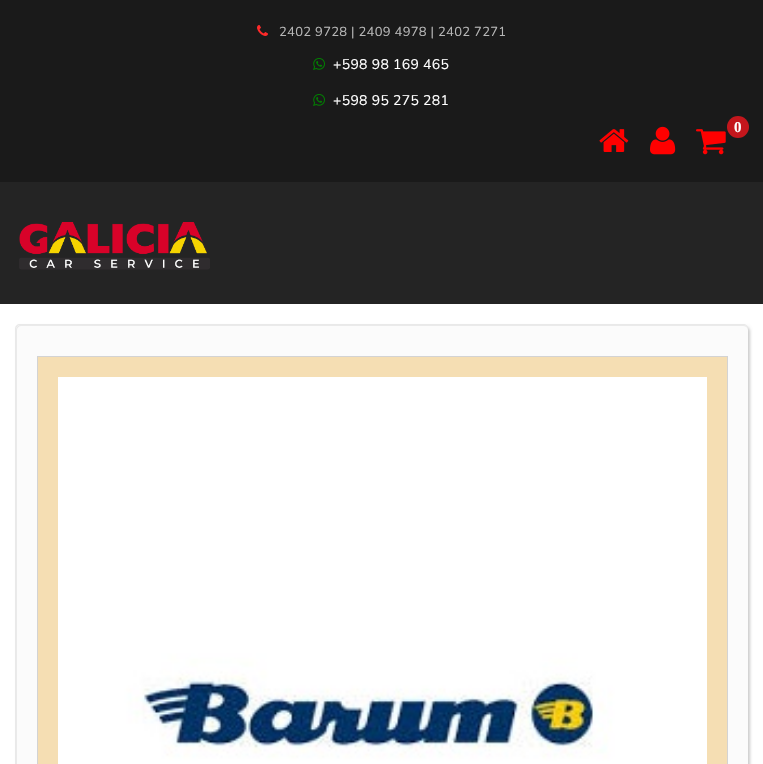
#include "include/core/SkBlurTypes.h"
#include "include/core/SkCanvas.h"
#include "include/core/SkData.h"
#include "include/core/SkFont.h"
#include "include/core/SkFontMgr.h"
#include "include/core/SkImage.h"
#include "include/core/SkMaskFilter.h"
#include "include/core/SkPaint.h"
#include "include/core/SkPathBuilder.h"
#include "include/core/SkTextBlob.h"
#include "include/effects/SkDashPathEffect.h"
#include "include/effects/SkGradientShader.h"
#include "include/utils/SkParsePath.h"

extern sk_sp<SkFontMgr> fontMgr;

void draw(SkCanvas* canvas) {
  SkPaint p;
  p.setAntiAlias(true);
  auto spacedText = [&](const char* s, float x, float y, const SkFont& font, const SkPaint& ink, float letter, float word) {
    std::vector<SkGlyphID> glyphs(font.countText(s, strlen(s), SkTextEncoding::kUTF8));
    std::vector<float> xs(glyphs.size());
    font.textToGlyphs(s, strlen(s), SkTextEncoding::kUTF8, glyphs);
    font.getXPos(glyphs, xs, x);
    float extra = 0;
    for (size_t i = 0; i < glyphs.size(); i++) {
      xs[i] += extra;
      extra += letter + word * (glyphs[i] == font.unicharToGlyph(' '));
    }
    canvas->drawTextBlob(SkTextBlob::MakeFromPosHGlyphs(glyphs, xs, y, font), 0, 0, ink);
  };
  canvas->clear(SK_ColorWHITE);
  p.setColor(SkColorSetRGB(26, 26, 26));
  canvas->drawRect(SkRect::MakeLTRB(0, 0, 763, 182), p);
  canvas->drawImageRect(SkImages::DeferredFromEncodedData(SkData::MakeFromFileName("images/1.png")), SkRect::MakeLTRB(257, 25, 268, 36), SkSamplingOptions());
  canvas->drawImageRect(SkImages::DeferredFromEncodedData(SkData::MakeFromFileName("images/2.png")), SkRect::MakeLTRB(313, 58, 325, 70), SkSamplingOptions());
  canvas->drawImageRect(SkImages::DeferredFromEncodedData(SkData::MakeFromFileName("images/2.png")), SkRect::MakeLTRB(313, 94, 325, 106), SkSamplingOptions());
  canvas->drawImageRect(SkImages::DeferredFromEncodedData(SkData::MakeFromFileName("images/3.png")), SkRect::MakeLTRB(599, 129, 629, 152), SkSamplingOptions());
  canvas->drawImageRect(SkImages::DeferredFromEncodedData(SkData::MakeFromFileName("images/4.png")), SkRect::MakeLTRB(650, 126, 676, 155), SkSamplingOptions());
  p.setColor(SkColorSetRGB(196, 22, 28));
  canvas->drawCircle(738, 127, 11, p);
  canvas->drawImageRect(SkImages::DeferredFromEncodedData(SkData::MakeFromFileName("images/5.png")), SkRect::MakeLTRB(696, 129, 726, 155), SkSamplingOptions());
  p.setColor(SkColorSetRGB(36, 36, 36));
  canvas->drawRect(SkRect::MakeLTRB(0, 182, 763, 304), p);
  canvas->drawImageRect(SkImages::DeferredFromEncodedData(SkData::MakeFromFileName("images/6.png")), SkRect::MakeLTRB(19, 222, 210, 270), SkSamplingOptions());
  p.setColor(SkColorSetARGB(26, 0, 0, 0));
  p.setMaskFilter(SkMaskFilter::MakeBlur(kNormal_SkBlurStyle, 1.5f));
  canvas->drawRoundRect(SkRect::MakeLTRB(17, 326, 750, 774), 5, 5, p);
  p.setMaskFilter(nullptr);
  p.setColor(SkColorSetRGB(234, 234, 234));
  canvas->drawPath(SkPathBuilder(SkPathFillType::kEvenOdd).moveTo(20, 324).lineTo(743, 324).cubicTo(746, 324, 748, 326, 748, 329).lineTo(748, 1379).cubicTo(748, 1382, 746, 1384, 743, 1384).lineTo(20, 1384).cubicTo(17, 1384, 15, 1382, 15, 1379).lineTo(15, 329).cubicTo(15, 326, 17, 324, 20, 324).close().moveTo(20, 325).lineTo(743, 325).cubicTo(746, 325, 748, 327, 748, 329).lineTo(748, 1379).cubicTo(748, 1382, 746, 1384, 743, 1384).lineTo(20, 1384).cubicTo(18, 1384, 16, 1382, 16, 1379).lineTo(16, 329).cubicTo(16, 327, 18, 325, 20, 325).close().detach(), p);
  p.setColor(SkColorSetARGB(26, 0, 0, 0));
  p.setMaskFilter(SkMaskFilter::MakeBlur(kNormal_SkBlurStyle, 1.5f));
  canvas->drawRoundRect(SkRect::MakeLTRB(18, 327, 750, 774), 5, 5, p);
  p.setMaskFilter(nullptr);
  p.setColor(SkColorSetRGB(251, 251, 251));
  canvas->drawRoundRect(SkRect::MakeLTRB(16, 325, 748, 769), 5, 5, p);
  p.setColor(SkColorSetRGB(234, 234, 234));
  canvas->drawPath(SkPathBuilder(SkPathFillType::kEvenOdd).moveTo(21, 325).lineTo(743, 325).cubicTo(746, 325, 748, 327, 748, 330).lineTo(748, 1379).cubicTo(748, 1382, 746, 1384, 743, 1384).lineTo(21, 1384).cubicTo(18, 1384, 16, 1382, 16, 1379).lineTo(16, 330).cubicTo(16, 327, 18, 325, 21, 325).close().moveTo(21, 326).lineTo(743, 326).cubicTo(746, 326, 748, 328, 748, 330).lineTo(748, 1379).cubicTo(748, 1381, 746, 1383, 743, 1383).lineTo(21, 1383).cubicTo(19, 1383, 17, 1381, 17, 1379).lineTo(17, 330).cubicTo(17, 328, 19, 326, 21, 326).close().detach(), p);
  p.setColor(SkColorSetRGB(245, 222, 179));
  canvas->drawRect(SkRect::MakeLTRB(37.5f, 356.5f, 727.5f, 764.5f), p);
  p.setStyle(SkPaint::kStroke_Style);
  p.setStrokeWidth(1);
  p.setColor(SkColorSetRGB(211, 211, 211));
  canvas->drawRect(SkRect::MakeLTRB(37.5f, 356.5f, 727.5f, 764.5f), p);
  canvas->drawImageRect(SkImages::DeferredFromEncodedData(SkData::MakeFromFileName("images/7.png")), SkRect::MakeLTRB(58, 377, 707, 764), SkSamplingOptions());
  SkFont font1(fontMgr->matchFamilyStyle("Nunito", SkFontStyle::Normal()), 13);
  font1.setSubpixel(true);
  p.setStyle(SkPaint::kFill_Style);
  p.setColor(SkColorSetRGB(183, 183, 183));
  spacedText("2402 9728 | 2409 4978 | 2402 7271", 279, 36, font1, p, 0.3f, 0);
  SkFont font2(fontMgr->matchFamilyStyle("Nunito", SkFontStyle::Normal()), 14);
  font2.setSubpixel(true);
  p.setColor(SK_ColorWHITE);
  spacedText("+598 98 169 465", 333, 69, font2, p, 0.3f, 0);
  spacedText("+598 95 275 281", 333, 105, font2, p, 0.3f, 0);
  SkFont font3(fontMgr->matchFamilyStyle("Liberation Serif", SkFontStyle::Bold()), 15);
  font3.setSubpixel(true);
  canvas->drawString("0", 734, 132, font3, p);
}
